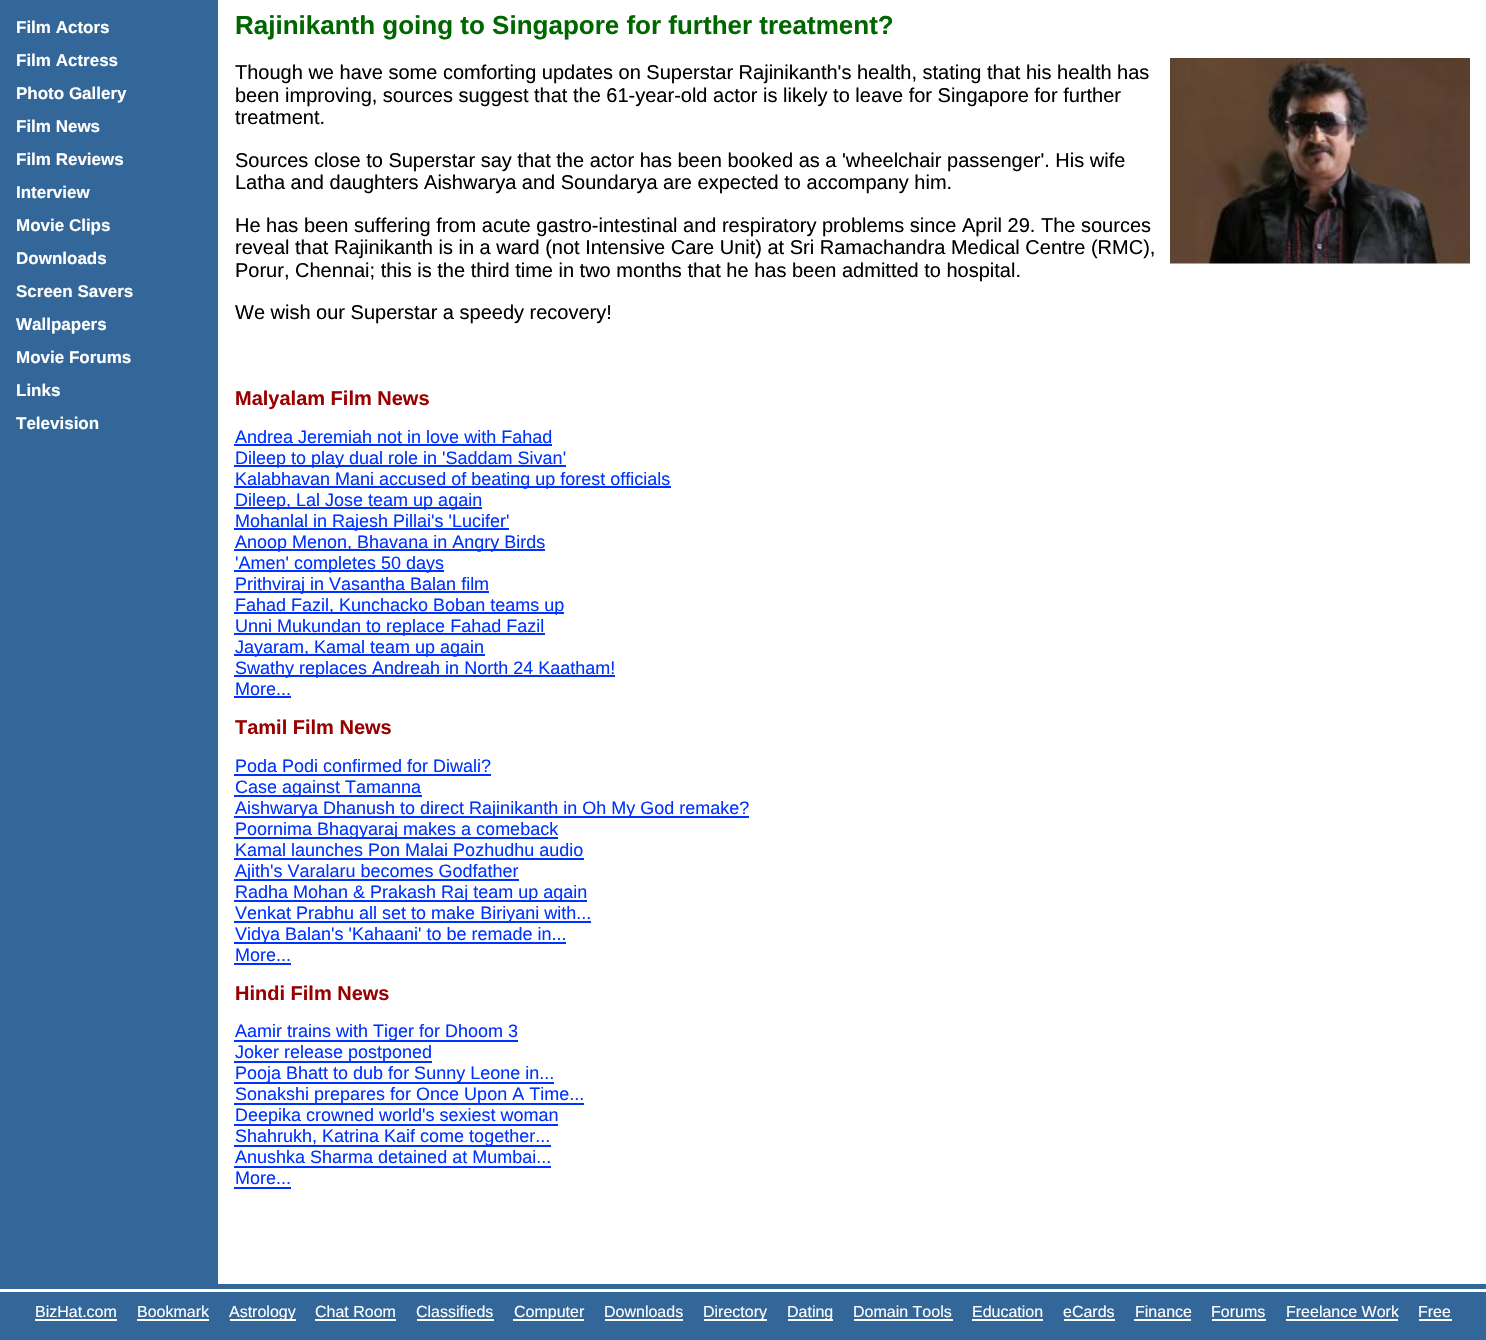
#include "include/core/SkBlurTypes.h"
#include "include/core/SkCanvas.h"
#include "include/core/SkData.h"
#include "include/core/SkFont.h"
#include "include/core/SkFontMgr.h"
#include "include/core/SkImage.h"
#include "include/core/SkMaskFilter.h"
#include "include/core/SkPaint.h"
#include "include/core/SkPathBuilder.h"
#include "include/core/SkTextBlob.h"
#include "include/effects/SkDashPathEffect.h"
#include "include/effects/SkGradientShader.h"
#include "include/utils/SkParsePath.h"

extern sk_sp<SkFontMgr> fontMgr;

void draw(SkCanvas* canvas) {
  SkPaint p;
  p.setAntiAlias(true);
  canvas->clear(SK_ColorWHITE);
  p.setColor(SkColorSetRGB(51, 102, 153));
  canvas->drawRect(SkRect::MakeLTRB(0, 0, 218, 1284), p);
  canvas->drawImageRect(SkImages::DeferredFromEncodedData(SkData::MakeFromFileName("images/1.png")), SkRect::MakeLTRB(1170, 58, 1470, 264), SkSamplingOptions());
  p.setColor(SkColorSetRGB(0, 51, 255));
  canvas->drawRect(SkRect::MakeLTRB(234, 444, 552, 446), p);
  canvas->drawRect(SkRect::MakeLTRB(234, 465, 566, 467), p);
  canvas->drawRect(SkRect::MakeLTRB(234, 486, 671, 488), p);
  canvas->drawRect(SkRect::MakeLTRB(234, 507, 482, 509), p);
  canvas->drawRect(SkRect::MakeLTRB(234, 528, 509, 530), p);
  canvas->drawRect(SkRect::MakeLTRB(234, 549, 545, 551), p);
  canvas->drawRect(SkRect::MakeLTRB(234, 570, 444, 572), p);
  canvas->drawRect(SkRect::MakeLTRB(234, 591, 489, 593), p);
  canvas->drawRect(SkRect::MakeLTRB(234, 612, 564, 614), p);
  canvas->drawRect(SkRect::MakeLTRB(234, 633, 545, 635), p);
  canvas->drawRect(SkRect::MakeLTRB(234, 654, 485, 656), p);
  canvas->drawRect(SkRect::MakeLTRB(234, 675, 615, 677), p);
  canvas->drawRect(SkRect::MakeLTRB(234, 696, 291, 698), p);
  canvas->drawRect(SkRect::MakeLTRB(234, 774, 491, 776), p);
  canvas->drawRect(SkRect::MakeLTRB(234, 795, 422, 797), p);
  canvas->drawRect(SkRect::MakeLTRB(234, 816, 749, 818), p);
  canvas->drawRect(SkRect::MakeLTRB(234, 837, 558, 839), p);
  canvas->drawRect(SkRect::MakeLTRB(234, 858, 584, 860), p);
  canvas->drawRect(SkRect::MakeLTRB(234, 879, 519, 881), p);
  canvas->drawRect(SkRect::MakeLTRB(234, 900, 587, 902), p);
  canvas->drawRect(SkRect::MakeLTRB(234, 921, 591, 923), p);
  canvas->drawRect(SkRect::MakeLTRB(234, 942, 566, 944), p);
  canvas->drawRect(SkRect::MakeLTRB(234, 963, 291, 965), p);
  canvas->drawRect(SkRect::MakeLTRB(234, 1040, 518, 1042), p);
  canvas->drawRect(SkRect::MakeLTRB(234, 1061, 432, 1063), p);
  canvas->drawRect(SkRect::MakeLTRB(234, 1082, 554, 1084), p);
  canvas->drawRect(SkRect::MakeLTRB(234, 1103, 584, 1105), p);
  canvas->drawRect(SkRect::MakeLTRB(234, 1124, 558, 1126), p);
  canvas->drawRect(SkRect::MakeLTRB(234, 1145, 551, 1147), p);
  canvas->drawRect(SkRect::MakeLTRB(234, 1166, 551, 1168), p);
  canvas->drawRect(SkRect::MakeLTRB(234, 1187, 291, 1189), p);
  p.setColor(SkColorSetRGB(51, 102, 153));
  canvas->drawRect(SkRect::MakeLTRB(0, 1284, 1486, 1340), p);
  p.setColor(SK_ColorWHITE);
  canvas->drawRect(SkRect::MakeLTRB(0, 1289, 1486, 1292), p);
  canvas->drawRect(SkRect::MakeLTRB(35, 1319, 117, 1321), p);
  canvas->drawRect(SkRect::MakeLTRB(137, 1319, 209, 1321), p);
  canvas->drawRect(SkRect::MakeLTRB(230, 1319, 296, 1321), p);
  canvas->drawRect(SkRect::MakeLTRB(315, 1319, 396, 1321), p);
  canvas->drawRect(SkRect::MakeLTRB(417, 1319, 494, 1321), p);
  canvas->drawRect(SkRect::MakeLTRB(513, 1319, 584, 1321), p);
  canvas->drawRect(SkRect::MakeLTRB(605, 1319, 683, 1321), p);
  canvas->drawRect(SkRect::MakeLTRB(704, 1319, 767, 1321), p);
  canvas->drawRect(SkRect::MakeLTRB(788, 1319, 833, 1321), p);
  canvas->drawRect(SkRect::MakeLTRB(854, 1319, 953, 1321), p);
  canvas->drawRect(SkRect::MakeLTRB(972, 1319, 1043, 1321), p);
  canvas->drawRect(SkRect::MakeLTRB(1064, 1319, 1115, 1321), p);
  canvas->drawRect(SkRect::MakeLTRB(1134, 1319, 1191, 1321), p);
  canvas->drawRect(SkRect::MakeLTRB(1212, 1319, 1266, 1321), p);
  canvas->drawRect(SkRect::MakeLTRB(1286, 1319, 1398, 1321), p);
  canvas->drawRect(SkRect::MakeLTRB(1419, 1319, 1452, 1321), p);
  SkFont font1(fontMgr->matchFamilyStyle("Liberation Sans", SkFontStyle::Bold()), 17);
  font1.setSubpixel(true);
  canvas->drawString("Film Actors", 16, 33, font1, p);
  canvas->drawString("Film Actress", 16, 66, font1, p);
  canvas->drawString("Photo Gallery", 16, 99, font1, p);
  canvas->drawString("Film News", 16, 132, font1, p);
  canvas->drawString("Film Reviews", 16, 165, font1, p);
  canvas->drawString("Interview", 16, 198, font1, p);
  canvas->drawString("Movie Clips", 16, 231, font1, p);
  canvas->drawString("Downloads", 16, 264, font1, p);
  canvas->drawString("Screen Savers", 16, 297, font1, p);
  canvas->drawString("Wallpapers", 16, 330, font1, p);
  canvas->drawString("Movie Forums", 16, 363, font1, p);
  canvas->drawString("Links", 16, 396, font1, p);
  canvas->drawString("Television", 16, 429, font1, p);
  SkFont font2(fontMgr->matchFamilyStyle("Liberation Sans", SkFontStyle::Bold()), 26);
  font2.setSubpixel(true);
  p.setColor(SkColorSetRGB(0, 102, 0));
  canvas->drawString("Rajinikanth going to Singapore for further treatment?", 235, 34, font2, p);
  SkFont font3(fontMgr->matchFamilyStyle("Liberation Sans", SkFontStyle::Normal()), 20);
  font3.setSubpixel(true);
  p.setColor(SK_ColorBLACK);
  canvas->drawString("Though we have some comforting updates on Superstar Rajinikanth's health, stating that his health has", 235, 79, font3, p);
  canvas->drawString("been improving, sources suggest that the 61-year-old actor is likely to leave for Singapore for further", 235, 102, font3, p);
  canvas->drawString("treatment.", 235, 124, font3, p);
  canvas->drawString("Sources close to Superstar say that the actor has been booked as a 'wheelchair passenger'. His wife", 235, 167, font3, p);
  canvas->drawString("Latha and daughters Aishwarya and Soundarya are expected to accompany him.", 235, 189, font3, p);
  canvas->drawString("He has been suffering from acute gastro-intestinal and respiratory problems since April 29. The sources", 235, 232, font3, p);
  canvas->drawString("reveal that Rajinikanth is in a ward (not Intensive Care Unit) at Sri Ramachandra Medical Centre (RMC),", 235, 254, font3, p);
  canvas->drawString("Porur, Chennai; this is the third time in two months that he has been admitted to hospital.", 235, 277, font3, p);
  canvas->drawString("We wish our Superstar a speedy recovery!", 235, 319, font3, p);
  SkFont font4(fontMgr->matchFamilyStyle("Liberation Sans", SkFontStyle::Bold()), 20);
  font4.setSubpixel(true);
  p.setColor(SkColorSetRGB(153, 0, 0));
  canvas->drawString("Malyalam Film News", 235, 405, font4, p);
  SkFont font5(fontMgr->matchFamilyStyle("Liberation Sans", SkFontStyle::Normal()), 18);
  font5.setSubpixel(true);
  p.setColor(SkColorSetRGB(0, 51, 255));
  canvas->drawString("Andrea Jeremiah not in love with Fahad", 235, 443, font5, p);
  canvas->drawString("Dileep to play dual role in 'Saddam Sivan'", 235, 464, font5, p);
  canvas->drawString("Kalabhavan Mani accused of beating up forest officials", 235, 485, font5, p);
  canvas->drawString("Dileep, Lal Jose team up again", 235, 506, font5, p);
  canvas->drawString("Mohanlal in Rajesh Pillai's 'Lucifer'", 235, 527, font5, p);
  canvas->drawString("Anoop Menon, Bhavana in Angry Birds", 235, 548, font5, p);
  canvas->drawString("'Amen' completes 50 days", 235, 569, font5, p);
  canvas->drawString("Prithviraj in Vasantha Balan film", 235, 590, font5, p);
  canvas->drawString("Fahad Fazil, Kunchacko Boban teams up", 235, 611, font5, p);
  canvas->drawString("Unni Mukundan to replace Fahad Fazil", 235, 632, font5, p);
  canvas->drawString("Jayaram, Kamal team up again", 235, 653, font5, p);
  canvas->drawString("Swathy replaces Andreah in North 24 Kaatham!", 235, 674, font5, p);
  canvas->drawString("More...", 235, 695, font5, p);
  p.setColor(SkColorSetRGB(153, 0, 0));
  canvas->drawString("Tamil Film News", 235, 734, font4, p);
  p.setColor(SkColorSetRGB(0, 51, 255));
  canvas->drawString("Poda Podi confirmed for Diwali?", 235, 772, font5, p);
  canvas->drawString("Case against Tamanna", 235, 793, font5, p);
  canvas->drawString("Aishwarya Dhanush to direct Rajinikanth in Oh My God remake?", 235, 814, font5, p);
  canvas->drawString("Poornima Bhagyaraj makes a comeback", 235, 835, font5, p);
  canvas->drawString("Kamal launches Pon Malai Pozhudhu audio", 235, 856, font5, p);
  canvas->drawString("Ajith's Varalaru becomes Godfather", 235, 877, font5, p);
  canvas->drawString("Radha Mohan & Prakash Raj team up again", 235, 898, font5, p);
  canvas->drawString("Venkat Prabhu all set to make Biriyani with...", 235, 919, font5, p);
  canvas->drawString("Vidya Balan's 'Kahaani' to be remade in...", 235, 940, font5, p);
  canvas->drawString("More...", 235, 961, font5, p);
  p.setColor(SkColorSetRGB(153, 0, 0));
  canvas->drawString("Hindi Film News", 235, 1000, font4, p);
  p.setColor(SkColorSetRGB(0, 51, 255));
  canvas->drawString("Aamir trains with Tiger for Dhoom 3", 235, 1037, font5, p);
  canvas->drawString("Joker release postponed", 235, 1058, font5, p);
  canvas->drawString("Pooja Bhatt to dub for Sunny Leone in...", 235, 1079, font5, p);
  canvas->drawString("Sonakshi prepares for Once Upon A Time...", 235, 1100, font5, p);
  canvas->drawString("Deepika crowned world's sexiest woman", 235, 1121, font5, p);
  canvas->drawString("Shahrukh, Katrina Kaif come together...", 235, 1142, font5, p);
  canvas->drawString("Anushka Sharma detained at Mumbai...", 235, 1163, font5, p);
  canvas->drawString("More...", 235, 1184, font5, p);
  SkFont font6(fontMgr->matchFamilyStyle("Liberation Sans", SkFontStyle::Normal()), 16);
  font6.setSubpixel(true);
  p.setColor(SK_ColorWHITE);
  canvas->drawString("BizHat.com", 35, 1317, font6, p);
  canvas->drawString("Bookmark", 137, 1317, font6, p);
  canvas->drawString("Astrology", 229, 1317, font6, p);
  canvas->drawString("Chat Room", 315, 1317, font6, p);
  canvas->drawString("Classifieds", 416, 1317, font6, p);
  canvas->drawString("Computer", 514, 1317, font6, p);
  canvas->drawString("Downloads", 604, 1317, font6, p);
  canvas->drawString("Directory", 703, 1317, font6, p);
  canvas->drawString("Dating", 787, 1317, font6, p);
  canvas->drawString("Domain Tools", 853, 1317, font6, p);
  canvas->drawString("Education", 972, 1317, font6, p);
  canvas->drawString("eCards", 1063, 1317, font6, p);
  canvas->drawString("Finance", 1135, 1317, font6, p);
  canvas->drawString("Forums", 1211, 1317, font6, p);
  canvas->drawString("Freelance Work", 1286, 1317, font6, p);
  canvas->drawString("Free", 1418, 1317, font6, p);
}
